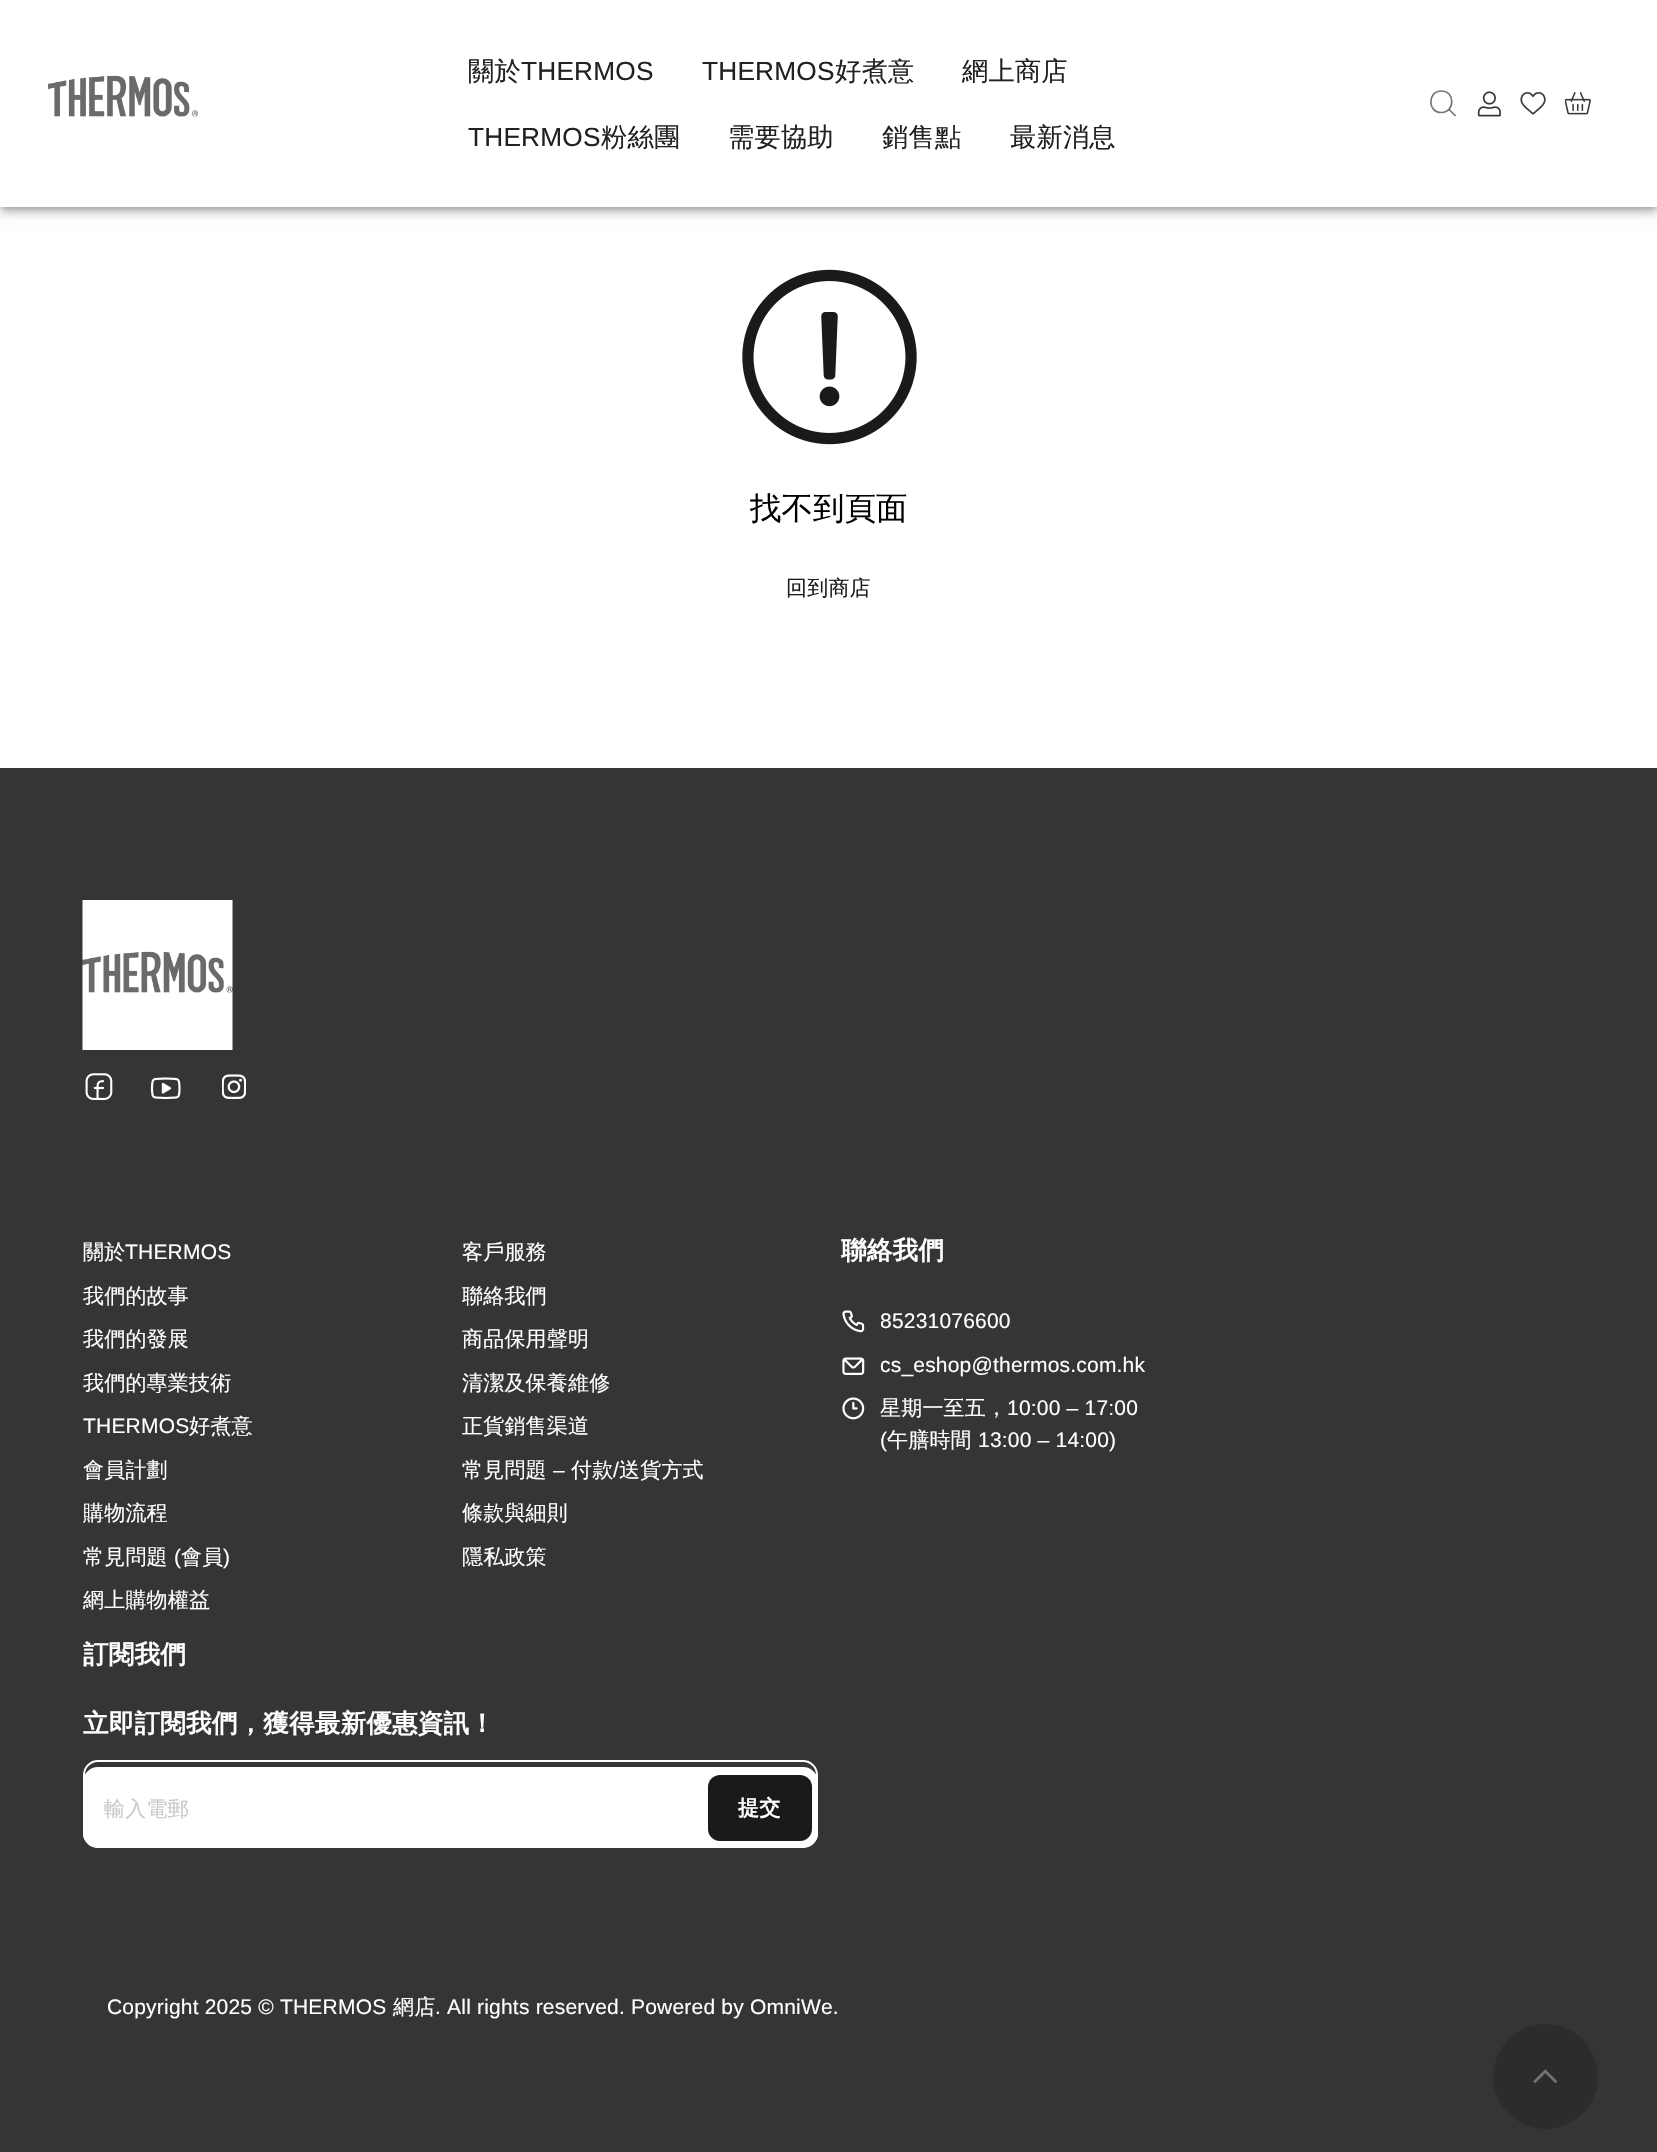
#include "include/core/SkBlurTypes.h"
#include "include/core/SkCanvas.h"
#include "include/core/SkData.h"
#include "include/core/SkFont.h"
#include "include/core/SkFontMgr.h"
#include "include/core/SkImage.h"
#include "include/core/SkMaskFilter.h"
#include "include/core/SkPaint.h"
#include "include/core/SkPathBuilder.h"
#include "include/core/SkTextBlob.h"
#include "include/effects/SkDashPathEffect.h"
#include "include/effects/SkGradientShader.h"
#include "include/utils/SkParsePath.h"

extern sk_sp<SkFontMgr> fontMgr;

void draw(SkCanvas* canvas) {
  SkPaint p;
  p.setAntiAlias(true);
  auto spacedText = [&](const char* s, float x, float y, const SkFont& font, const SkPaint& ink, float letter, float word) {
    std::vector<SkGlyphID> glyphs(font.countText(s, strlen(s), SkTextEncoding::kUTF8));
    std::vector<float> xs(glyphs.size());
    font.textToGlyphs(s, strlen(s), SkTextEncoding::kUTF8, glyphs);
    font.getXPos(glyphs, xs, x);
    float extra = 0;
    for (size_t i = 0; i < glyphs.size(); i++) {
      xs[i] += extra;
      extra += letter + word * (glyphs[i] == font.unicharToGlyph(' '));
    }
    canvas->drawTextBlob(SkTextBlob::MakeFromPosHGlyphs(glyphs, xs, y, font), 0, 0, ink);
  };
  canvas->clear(SK_ColorWHITE);
  p.setColor(SkColorSetARGB(31, 0, 0, 0));
  p.setMaskFilter(SkMaskFilter::MakeBlur(kNormal_SkBlurStyle, 7.5f));
  canvas->drawRect(SkRect::MakeLTRB(0, 2, 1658, 209), p);
  p.setMaskFilter(nullptr);
  p.setColor(SkColorSetARGB(36, 0, 0, 0));
  p.setMaskFilter(SkMaskFilter::MakeBlur(kNormal_SkBlurStyle, 4));
  canvas->drawRect(SkRect::MakeLTRB(0, 6, 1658, 213), p);
  p.setMaskFilter(nullptr);
  p.setColor(SkColorSetARGB(51, 0, 0, 0));
  p.setMaskFilter(SkMaskFilter::MakeBlur(kNormal_SkBlurStyle, 3));
  canvas->drawRect(SkRect::MakeLTRB(2, 5, 1656, 209), p);
  p.setMaskFilter(nullptr);
  p.setColor(SK_ColorWHITE);
  canvas->drawRect(SkRect::MakeLTRB(0, 0, 1657, 207), p);
  canvas->drawImageRect(SkImages::DeferredFromEncodedData(SkData::MakeFromFileName("images/1.png")), SkRect::MakeLTRB(48, 75, 198, 117), SkSamplingOptions());
  p.setStyle(SkPaint::kStroke_Style);
  p.setStrokeWidth(1.7f);
  p.setStrokeCap(SkPaint::kRound_Cap);
  p.setStrokeJoin(SkPaint::kRound_Join);
  p.setColor(SkColorSetRGB(117, 117, 117));
  canvas->drawPath(SkPathBuilder().moveTo(1441.5f, 91).cubicTo(1427, 91, 1427.5f, 113, 1441.5f, 112.5f).cubicTo(1455.5f, 112, 1455, 91, 1441.5f, 91).close().detach(), p);
  p.setStrokeJoin(SkPaint::kMiter_Join);
  p.setColor(SkColorSetARGB(138, 0, 0, 0));
  canvas->drawPath(SkPathBuilder().moveTo(1449.5f, 110).lineTo(1455, 115.5f).detach(), p);
  canvas->drawImageRect(SkImages::DeferredFromEncodedData(SkData::MakeFromFileName("images/2.png")), SkRect::MakeLTRB(1477, 91, 1501, 117), SkSamplingOptions());
  canvas->drawImageRect(SkImages::DeferredFromEncodedData(SkData::MakeFromFileName("images/3.png")), SkRect::MakeLTRB(1520, 92, 1546, 115), SkSamplingOptions());
  canvas->drawImageRect(SkImages::DeferredFromEncodedData(SkData::MakeFromFileName("images/4.png")), SkRect::MakeLTRB(1565, 92, 1591, 115), SkSamplingOptions());
  canvas->drawImageRect(SkImages::DeferredFromEncodedData(SkData::MakeFromFileName("images/5.png")), SkRect::MakeLTRB(742, 269, 917, 445), SkSamplingOptions());
  p.setStyle(SkPaint::kFill_Style);
  p.setColor(SkColorSetRGB(54, 53, 53));
  canvas->drawRect(SkRect::MakeLTRB(0, 768, 1657, 2152), p);
  canvas->drawImageRect(SkImages::DeferredFromEncodedData(SkData::MakeFromFileName("images/6.png")), SkRect::MakeLTRB(82, 900, 233, 1050), SkSamplingOptions());
  canvas->drawImageRect(SkImages::DeferredFromEncodedData(SkData::MakeFromFileName("images/7.png")), SkRect::MakeLTRB(85, 1073, 113, 1100), SkSamplingOptions());
  canvas->drawImageRect(SkImages::DeferredFromEncodedData(SkData::MakeFromFileName("images/8.png")), SkRect::MakeLTRB(150, 1077, 181, 1100), SkSamplingOptions());
  canvas->drawImageRect(SkImages::DeferredFromEncodedData(SkData::MakeFromFileName("images/9.png")), SkRect::MakeLTRB(222, 1074, 246, 1099), SkSamplingOptions());
  canvas->drawImageRect(SkImages::DeferredFromEncodedData(SkData::MakeFromFileName("images/10.png")), SkRect::MakeLTRB(842, 1310, 865, 1333), SkSamplingOptions());
  canvas->drawImageRect(SkImages::DeferredFromEncodedData(SkData::MakeFromFileName("images/11.png")), SkRect::MakeLTRB(842, 1357, 865, 1375), SkSamplingOptions());
  canvas->drawImageRect(SkImages::DeferredFromEncodedData(SkData::MakeFromFileName("images/12.png")), SkRect::MakeLTRB(842, 1397, 865, 1420), SkSamplingOptions());
  p.setColor(SK_ColorWHITE);
  canvas->drawRoundRect(SkRect::MakeLTRB(83, 1767, 818, 1848), 15, 15, p);
  p.setColor(SkColorSetRGB(26, 26, 26));
  canvas->drawRoundRect(SkRect::MakeLTRB(708, 1775, 812, 1841), 12, 12, p);
  p.setStyle(SkPaint::kStroke_Style);
  p.setStrokeWidth(2);
  p.setStrokeCap(SkPaint::kButt_Cap);
  p.setColor(SK_ColorWHITE);
  canvas->drawRoundRect(SkRect::MakeLTRB(84, 1761, 817, 1847), 14, 14, p);
  p.setStyle(SkPaint::kFill_Style);
  p.setColor(SkColorSetRGB(45, 44, 44));
  canvas->drawCircle(1545.5f, 2076.5f, 52.5f, p);
  canvas->drawImageRect(SkImages::DeferredFromEncodedData(SkData::MakeFromFileName("images/13.png")), SkRect::MakeLTRB(1533, 2069, 1558, 2083), SkSamplingOptions());
  SkFont font1(fontMgr->matchFamilyStyle("WenQuanYi Zen Hei", SkFontStyle(500, SkFontStyle::kNormal_Width, SkFontStyle::kUpright_Slant)), 26.25f);
  font1.setSubpixel(true);
  p.setColor(SkColorSetRGB(33, 33, 33));
  spacedText("關於", 468, 80, font1, p, 0.2f, 0);
  SkFont font2(fontMgr->matchFamilyStyle("Liberation Sans", SkFontStyle::Normal()), 26.25f);
  font2.setSubpixel(true);
  spacedText("THERMOS", 521, 80, font2, p, 0.2f, 0);
  spacedText("THERMOS", 702, 80, font2, p, 0.2f, 0);
  spacedText("好煮意", 835, 80, font1, p, 0.2f, 0);
  spacedText("網上商店", 962, 80, font1, p, 0.2f, 0);
  spacedText("THERMOS", 468, 146, font2, p, 0.2f, 0);
  spacedText("粉絲團", 601, 146, font1, p, 0.2f, 0);
  spacedText("需要協助", 728, 146, font1, p, 0.2f, 0);
  spacedText("銷售點", 882, 146, font1, p, 0.2f, 0);
  spacedText("最新消息", 1010, 146, font1, p, 0.2f, 0);
  SkFont font3(fontMgr->matchFamilyStyle("WenQuanYi Zen Hei", SkFontStyle(500, SkFontStyle::kNormal_Width, SkFontStyle::kUpright_Slant)), 31.5f);
  font3.setSubpixel(true);
  p.setColor(SK_ColorBLACK);
  canvas->drawString("找不到頁面", 750, 519, font3, p);
  SkFont font4(fontMgr->matchFamilyStyle("WenQuanYi Zen Hei", SkFontStyle(500, SkFontStyle::kNormal_Width, SkFontStyle::kUpright_Slant)), 21);
  font4.setSubpixel(true);
  p.setColor(SkColorSetRGB(26, 26, 26));
  spacedText("回到商店", 786, 595, font4, p, 0.2f, 0);
  p.setColor(SK_ColorWHITE);
  spacedText("關於", 83, 1259, font4, p, 0.2f, 0);
  SkFont font5(fontMgr->matchFamilyStyle("Liberation Sans", SkFontStyle::Normal()), 21);
  font5.setSubpixel(true);
  spacedText("THERMOS", 125, 1259, font5, p, 0.2f, 0);
  spacedText("我們的故事", 83, 1303, font4, p, 0.2f, 0);
  spacedText("我們的發展", 83, 1346, font4, p, 0.2f, 0);
  spacedText("我們的專業技術", 83, 1390, font4, p, 0.2f, 0);
  spacedText("THERMOS", 83, 1433, font5, p, 0.2f, 0);
  spacedText("好煮意", 189, 1433, font4, p, 0.2f, 0);
  spacedText("會員計劃", 83, 1477, font4, p, 0.2f, 0);
  spacedText("購物流程", 83, 1520, font4, p, 0.2f, 0);
  spacedText("常見問題", 83, 1564, font4, p, 0.2f, 0);
  spacedText("(", 174, 1564, font5, p, 0.2f, 0);
  spacedText("會員", 181, 1564, font4, p, 0.2f, 0);
  spacedText(")", 223, 1564, font5, p, 0.2f, 0);
  spacedText("網上購物權益", 83, 1607, font4, p, 0.2f, 0);
  spacedText("客戶服務", 462, 1259, font4, p, 0.2f, 0);
  spacedText("聯絡我們", 462, 1303, font4, p, 0.2f, 0);
  spacedText("商品保用聲明", 462, 1346, font4, p, 0.2f, 0);
  spacedText("清潔及保養維修", 462, 1390, font4, p, 0.2f, 0);
  spacedText("正貨銷售渠道", 462, 1433, font4, p, 0.2f, 0);
  spacedText("常見問題", 462, 1477, font4, p, 0.2f, 0);
  spacedText("–", 553, 1477, font5, p, 0.2f, 0);
  spacedText("付款", 571, 1477, font4, p, 0.2f, 0);
  spacedText("/", 613, 1477, font5, p, 0.2f, 0);
  spacedText("送貨方式", 619, 1477, font4, p, 0.2f, 0);
  spacedText("條款與細則", 462, 1520, font4, p, 0.2f, 0);
  spacedText("隱私政策", 462, 1564, font4, p, 0.2f, 0);
  SkFont font6(fontMgr->matchFamilyStyle("WenQuanYi Zen Hei", SkFontStyle::Bold()), 25.5f);
  font6.setSubpixel(true);
  spacedText("聯絡我們", 841, 1259, font6, p, 0.25f, 0);
  spacedText("85231076600", 880, 1328, font5, p, 0.2f, 0);
  spacedText("cs_eshop@thermos.com.hk", 880, 1372, font5, p, 0.2f, 0);
  spacedText("星期一至五，", 880, 1415, font4, p, 0.2f, 0);
  spacedText("10:00 – 17:00", 1007, 1415, font5, p, 0.2f, 0);
  spacedText("(", 880, 1447, font5, p, 0.2f, 0);
  spacedText("午膳時間", 887, 1447, font4, p, 0.2f, 0);
  spacedText("13:00 – 14:00)", 978, 1447, font5, p, 0.2f, 0);
  spacedText("訂閱我們", 83, 1663, font6, p, 0.25f, 0);
  spacedText("立即訂閱我們，獲得最新優惠資訊！", 83, 1732, font6, p, 0.25f, 0);
  p.setColor(SkColorSetRGB(202, 202, 202));
  spacedText("輸入電郵", 104, 1816, font4, p, 0.2f, 0);
  SkFont font7(fontMgr->matchFamilyStyle("WenQuanYi Zen Hei", SkFontStyle::Bold()), 21);
  font7.setSubpixel(true);
  p.setColor(SK_ColorWHITE);
  spacedText("提交", 738, 1815, font7, p, 0.2f, 0);
  spacedText("Copyright 2025 © THERMOS", 107, 2014, font5, p, 0.2f, 0);
  spacedText("網店", 393, 2014, font4, p, 0.2f, 0);
  spacedText(". All rights reserved. Powered by OmniWe.", 435, 2014, font5, p, 0.2f, 0);
}
